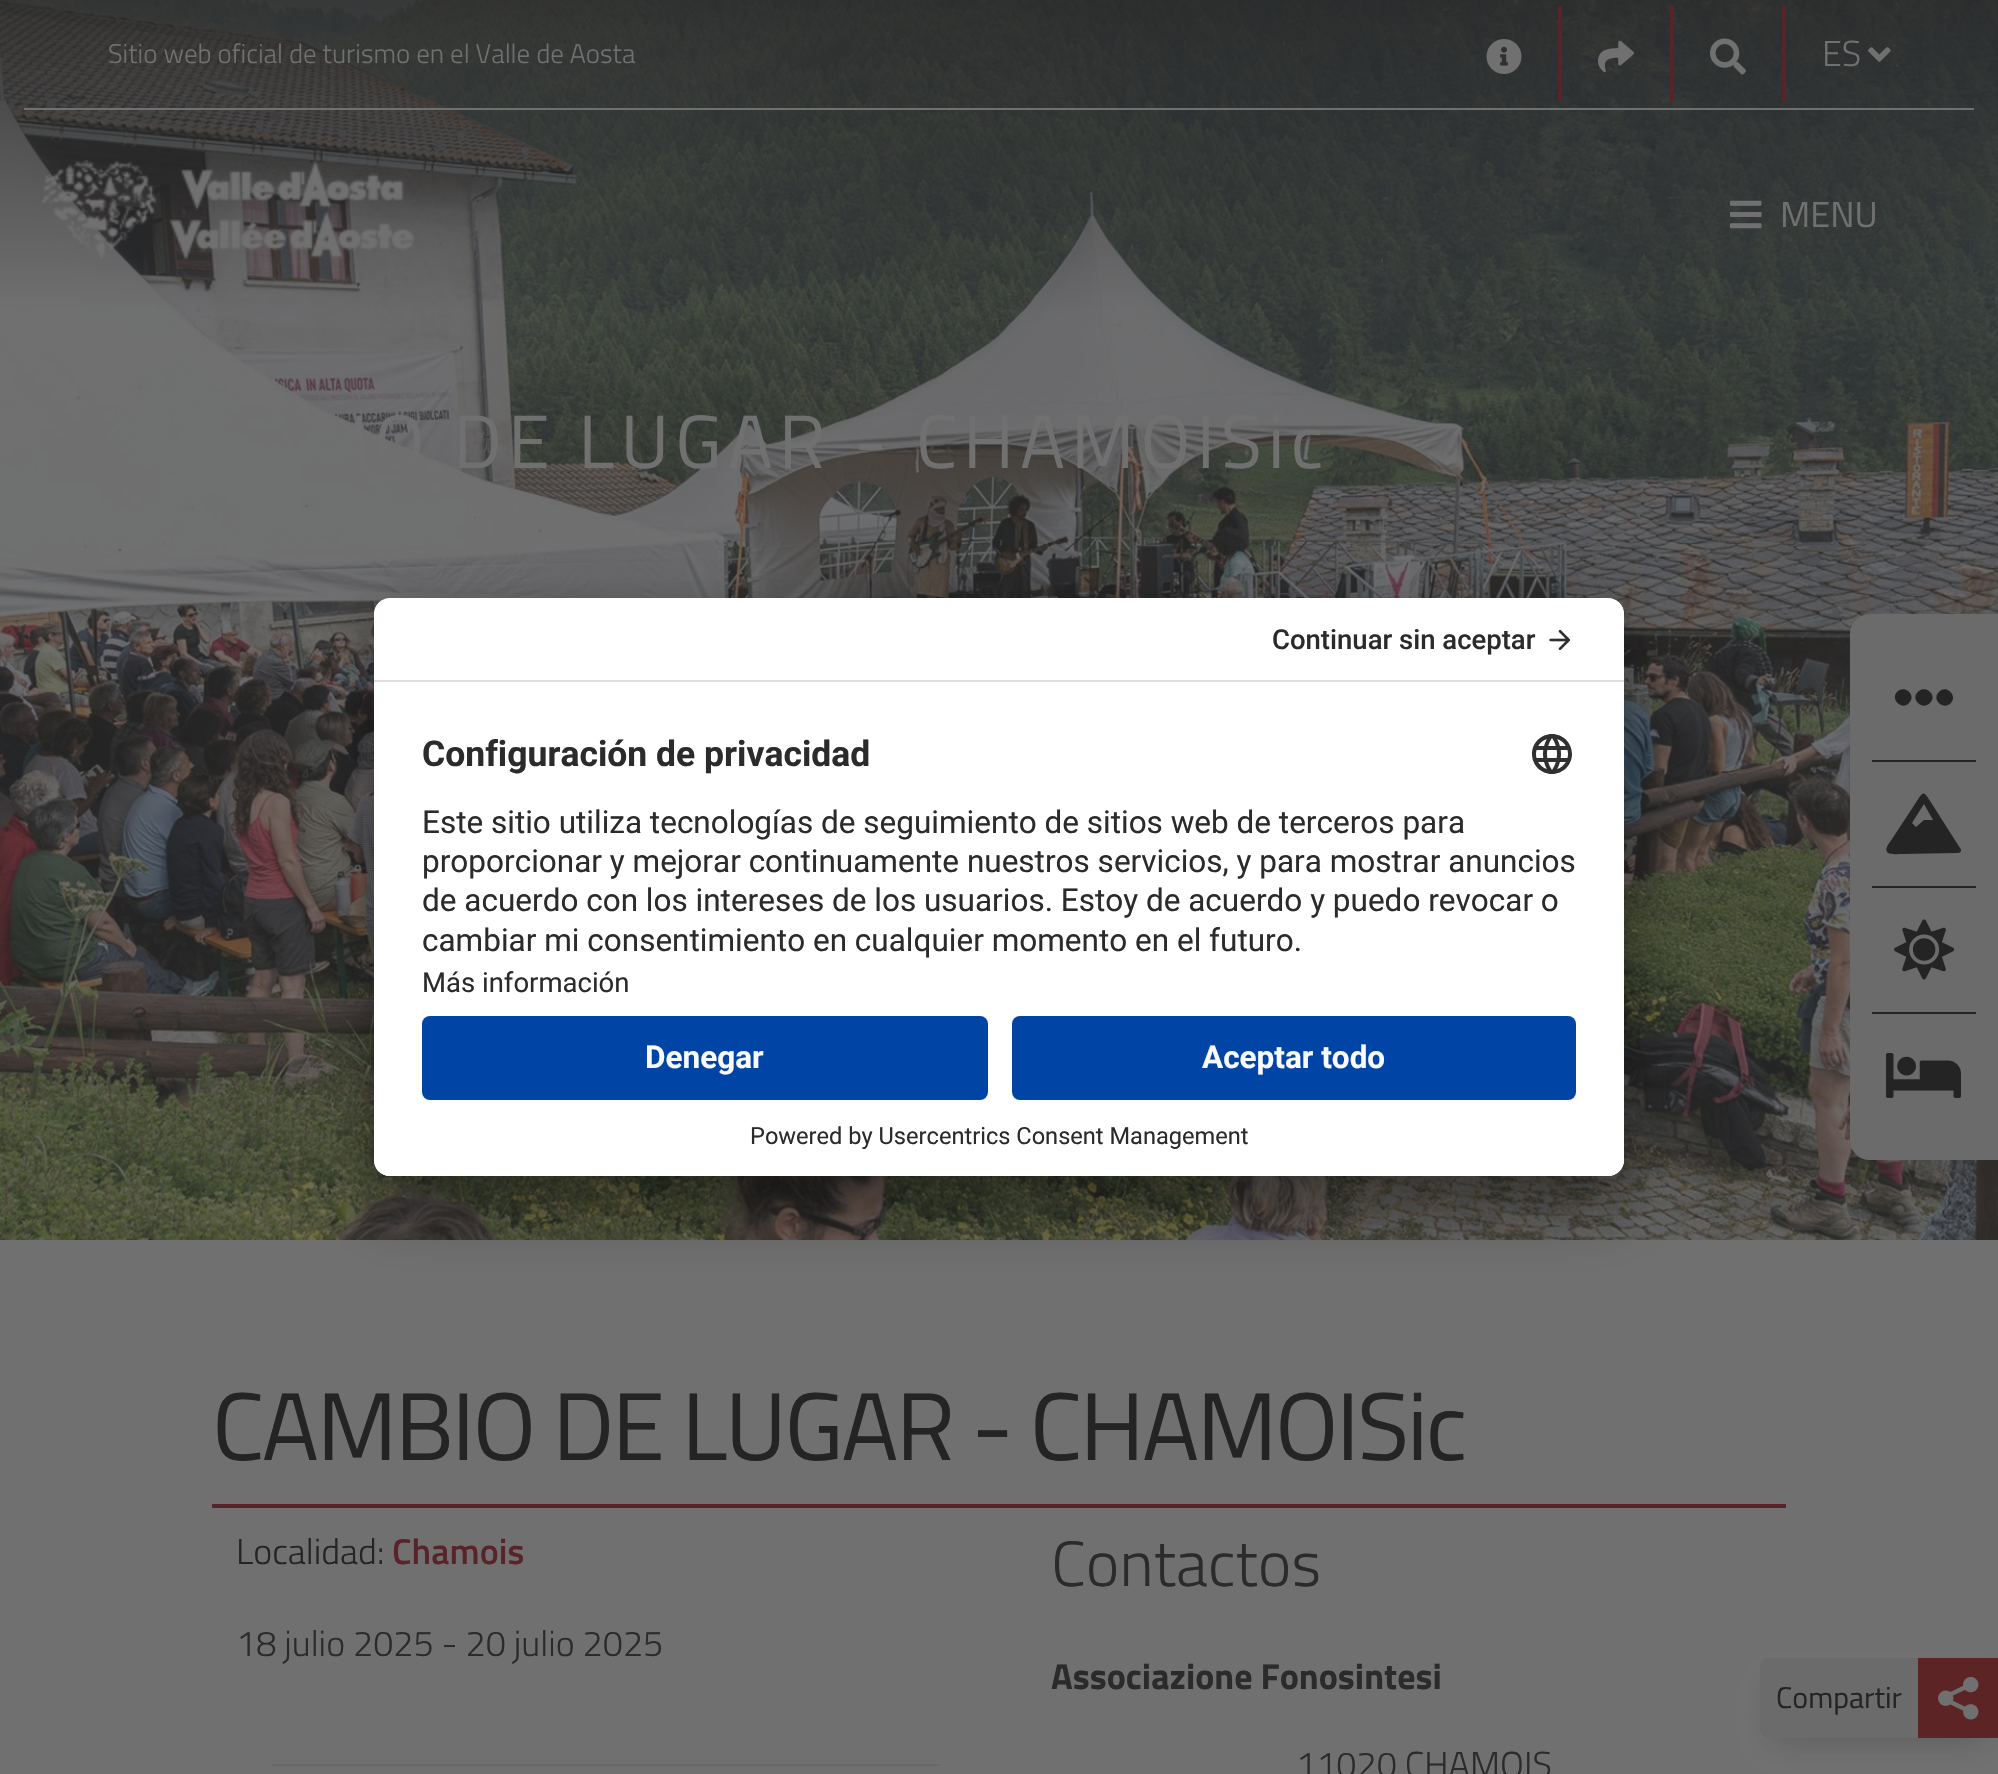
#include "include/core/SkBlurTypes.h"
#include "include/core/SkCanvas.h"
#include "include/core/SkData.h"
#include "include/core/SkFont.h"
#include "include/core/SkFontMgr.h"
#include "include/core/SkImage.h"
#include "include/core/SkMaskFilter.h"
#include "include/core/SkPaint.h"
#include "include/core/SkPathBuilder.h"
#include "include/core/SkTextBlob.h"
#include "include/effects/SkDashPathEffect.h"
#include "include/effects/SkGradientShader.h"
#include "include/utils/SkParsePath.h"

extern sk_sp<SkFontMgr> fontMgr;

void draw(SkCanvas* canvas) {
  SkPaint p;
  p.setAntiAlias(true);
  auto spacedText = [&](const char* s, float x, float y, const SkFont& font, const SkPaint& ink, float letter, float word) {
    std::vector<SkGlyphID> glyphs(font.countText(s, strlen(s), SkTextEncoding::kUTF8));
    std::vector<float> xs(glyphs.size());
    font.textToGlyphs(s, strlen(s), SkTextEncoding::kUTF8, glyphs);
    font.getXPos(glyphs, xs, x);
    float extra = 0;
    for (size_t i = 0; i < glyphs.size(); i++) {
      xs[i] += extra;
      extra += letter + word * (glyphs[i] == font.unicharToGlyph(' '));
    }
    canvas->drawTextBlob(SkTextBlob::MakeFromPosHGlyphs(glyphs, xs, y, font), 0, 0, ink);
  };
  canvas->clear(SkColorSetRGB(112, 112, 112));
  canvas->drawImageRect(SkImages::DeferredFromEncodedData(SkData::MakeFromFileName("images/7.png")), SkRect::MakeLTRB(0, 0, 1998, 1240), SkSamplingOptions());
  p.setColor(SkColorSetRGB(112, 112, 112));
  canvas->drawRect(SkRect::MakeLTRB(24, 108, 1974, 110), p);
  p.setColor(SkColorSetRGB(89, 36, 41));
  canvas->drawRect(SkRect::MakeLTRB(1558, 6, 1562, 102), p);
  canvas->drawImageRect(SkImages::DeferredFromEncodedData(SkData::MakeFromFileName("images/1.png")), SkRect::MakeLTRB(1486, 39, 1522, 74), SkSamplingOptions());
  canvas->drawRect(SkRect::MakeLTRB(1670, 6, 1674, 102), p);
  canvas->drawImageRect(SkImages::DeferredFromEncodedData(SkData::MakeFromFileName("images/2.png")), SkRect::MakeLTRB(1598, 40, 1634, 73), SkSamplingOptions());
  canvas->drawRect(SkRect::MakeLTRB(1782, 6, 1786, 102), p);
  canvas->drawImageRect(SkImages::DeferredFromEncodedData(SkData::MakeFromFileName("images/3.png")), SkRect::MakeLTRB(1710, 38, 1746, 75), SkSamplingOptions());
  canvas->drawImageRect(SkImages::DeferredFromEncodedData(SkData::MakeFromFileName("images/4.png")), SkRect::MakeLTRB(1868, 47, 1891, 62), SkSamplingOptions());
  canvas->drawImageRect(SkImages::DeferredFromEncodedData(SkData::MakeFromFileName("images/5.png")), SkRect::MakeLTRB(42, 160, 414, 260), SkSamplingOptions());
  canvas->drawImageRect(SkImages::DeferredFromEncodedData(SkData::MakeFromFileName("images/6.png")), SkRect::MakeLTRB(1730, 200, 1762, 229), SkSamplingOptions());
  p.setColor(SkColorSetARGB(77, 36, 36, 36));
  p.setMaskFilter(SkMaskFilter::MakeBlur(kNormal_SkBlurStyle, 16));
  canvas->drawRoundRect(SkRect::MakeLTRB(1866, 646, 1982, 1160), 4, 4, p);
  p.setMaskFilter(nullptr);
  p.setColor(SkColorSetRGB(107, 107, 107));
  canvas->drawPath(SkPathBuilder().moveTo(1870, 615).lineTo(1997, 615).lineTo(1997, 1159).lineTo(1870, 1159).cubicTo(1859.5f, 1159, 1851, 1150.5f, 1851, 1140).lineTo(1851, 634).cubicTo(1851, 623.5f, 1859.5f, 615, 1870, 615).close().detach(), p);
  p.setStyle(SkPaint::kStroke_Style);
  p.setStrokeWidth(2);
  canvas->drawPath(SkPathBuilder().moveTo(1870, 615).lineTo(1997, 615).lineTo(1997, 1159).lineTo(1870, 1159).cubicTo(1859.5f, 1159, 1851, 1150.5f, 1851, 1140).lineTo(1851, 634).cubicTo(1851, 623.5f, 1859.5f, 615, 1870, 615).close().detach(), p);
  p.setStyle(SkPaint::kFill_Style);
  p.setColor(SkColorSetRGB(36, 36, 36));
  canvas->drawRect(SkRect::MakeLTRB(1872, 760, 1976, 762), p);
  canvas->drawPath(SkPathBuilder().moveTo(1930, 692).cubicTo(1938, 699, 1926, 711, 1918, 703).cubicTo(1910, 696, 1922, 684, 1930, 692).close().moveTo(1939, 692).cubicTo(1946, 684, 1958, 696, 1951, 703).cubicTo(1943, 711, 1931, 699, 1939, 692).close().moveTo(1897, 692).cubicTo(1905, 684, 1917, 696, 1909, 703).cubicTo(1902, 711, 1890, 699, 1897, 692).close().detach(), p);
  canvas->drawRect(SkRect::MakeLTRB(1872, 886, 1976, 888), p);
  canvas->drawPath(SkPathBuilder().moveTo(1960, 848).cubicTo(1962, 850, 1961, 853, 1958, 853).lineTo(1901, 854).cubicTo(1899, 854, 1889, 855, 1887, 852).cubicTo(1884, 848, 1891, 841, 1892, 839).lineTo(1915, 804).cubicTo(1924, 790, 1923, 790, 1932, 804).close().moveTo(1924, 804).lineTo(1912, 823).lineTo(1916, 827).lineTo(1924, 820).lineTo(1933, 820).close().detach(), p);
  canvas->drawRect(SkRect::MakeLTRB(1872, 1012, 1976, 1014), p);
  canvas->drawImageRect(SkImages::DeferredFromEncodedData(SkData::MakeFromFileName("images/8.png")), SkRect::MakeLTRB(1894, 919, 1955, 980), SkSamplingOptions());
  canvas->drawImageRect(SkImages::DeferredFromEncodedData(SkData::MakeFromFileName("images/9.png")), SkRect::MakeLTRB(1886, 1053, 1961, 1098), SkSamplingOptions());
  p.setColor(SkColorSetRGB(89, 36, 41));
  canvas->drawRect(SkRect::MakeLTRB(212, 1504, 1786, 1508), p);
  p.setColor(SkColorSetRGB(104, 104, 105));
  canvas->drawRect(SkRect::MakeLTRB(272, 1764, 940, 1766), p);
  canvas->save();
  canvas->clipPath(SkPathBuilder(SkPathFillType::kEvenOdd).moveTo(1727, 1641).lineTo(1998, 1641).lineTo(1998, 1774).lineTo(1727, 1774).close().moveTo(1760, 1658).lineTo(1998, 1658).lineTo(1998, 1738).lineTo(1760, 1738).close().detach(), true);
  p.setColor(SkColorSetARGB(77, 36, 36, 36));
  p.setMaskFilter(SkMaskFilter::MakeBlur(kNormal_SkBlurStyle, 16));
  canvas->drawRect(SkRect::MakeLTRB(1776, 1690, 1982, 1738), p);
  p.setMaskFilter(nullptr);
  canvas->restore();
  p.setColor(SkColorSetRGB(107, 107, 107));
  canvas->drawPath(SkPathBuilder().moveTo(1768, 1658).lineTo(1998, 1658).lineTo(1998, 1738).lineTo(1768, 1738).cubicTo(1763.5f, 1738, 1760, 1734.5f, 1760, 1730).lineTo(1760, 1666).cubicTo(1760, 1661.5f, 1763.5f, 1658, 1768, 1658).close().detach(), p);
  p.setColor(SkColorSetRGB(93, 36, 37));
  canvas->drawRect(SkRect::MakeLTRB(1918, 1658, 1998, 1738), p);
  canvas->drawImageRect(SkImages::DeferredFromEncodedData(SkData::MakeFromFileName("images/10.png")), SkRect::MakeLTRB(1938, 1676, 1979, 1720), SkSamplingOptions());
  p.setColor(SkColorSetARGB(77, 0, 0, 0));
  p.setMaskFilter(SkMaskFilter::MakeBlur(kNormal_SkBlurStyle, 28));
  canvas->drawRoundRect(SkRect::MakeLTRB(374, 638, 1624, 1216), 16, 16, p);
  p.setMaskFilter(nullptr);
  p.setColor(SkColorSetARGB(56, 0, 0, 0));
  p.setMaskFilter(SkMaskFilter::MakeBlur(kNormal_SkBlurStyle, 26));
  canvas->drawRoundRect(SkRect::MakeLTRB(374, 608, 1624, 1186), 16, 16, p);
  p.setMaskFilter(nullptr);
  p.setColor(SK_ColorWHITE);
  canvas->drawRoundRect(SkRect::MakeLTRB(374, 598, 1624, 1176), 16, 16, p);
  canvas->save();
  canvas->clipPath(SkPathBuilder().moveTo(390, 598).lineTo(1608, 598).cubicTo(1617, 598, 1624, 605, 1624, 614).lineTo(1624, 1160).cubicTo(1624, 1169, 1617, 1176, 1608, 1176).lineTo(390, 1176).cubicTo(381, 1176, 374, 1169, 374, 1160).lineTo(374, 614).cubicTo(374, 605, 381, 598, 390, 598).close().detach(), true);
  canvas->clipPath(SkPathBuilder().moveTo(390, 598).lineTo(1608, 598).cubicTo(1617, 598, 1624, 605, 1624, 614).lineTo(1624, 1000).lineTo(374, 1000).lineTo(374, 614).cubicTo(374, 605, 381, 598, 390, 598).close().detach(), true);
  canvas->drawRect(SkRect::MakeLTRB(374, 600, 1624, 680), p);
  canvas->restore();
  p.setColor(SkColorSetRGB(222, 222, 222));
  canvas->drawRect(SkRect::MakeLTRB(374, 680, 1624, 682), p);
  canvas->drawImageRect(SkImages::DeferredFromEncodedData(SkData::MakeFromFileName("images/11.png")), SkRect::MakeLTRB(1549, 629, 1571, 651), SkSamplingOptions());
  canvas->drawImageRect(SkImages::DeferredFromEncodedData(SkData::MakeFromFileName("images/12.png")), SkRect::MakeLTRB(1532, 734, 1572, 774), SkSamplingOptions());
  p.setColor(SK_ColorWHITE);
  canvas->drawPath(SkPathBuilder().moveTo(374, 1000).lineTo(1624, 1000).lineTo(1624, 1160).cubicTo(1624, 1169, 1617, 1176, 1608, 1176).lineTo(390, 1176).cubicTo(381, 1176, 374, 1169, 374, 1160).close().detach(), p);
  p.setColor(SkColorSetRGB(0, 69, 165));
  canvas->drawRoundRect(SkRect::MakeLTRB(422, 1016, 988, 1100), 8, 8, p);
  canvas->drawRoundRect(SkRect::MakeLTRB(1012, 1016, 1576, 1100), 8, 8, p);
  SkFont font1(fontMgr->matchFamilyStyle("Titillium Web", SkFontStyle(300, SkFontStyle::kNormal_Width, SkFontStyle::kUpright_Slant)), 27);
  font1.setSubpixel(true);
  p.setColor(SkColorSetRGB(112, 112, 112));
  canvas->drawString("Sitio web oficial de turismo en el Valle de Aosta", 108, 63, font1, p);
  SkFont font2(fontMgr->matchFamilyStyle("Titillium Web", SkFontStyle(300, SkFontStyle::kNormal_Width, SkFontStyle::kUpright_Slant)), 36);
  font2.setSubpixel(true);
  canvas->drawString("ES", 1822, 66, font2, p);
  SkFont font3(fontMgr->matchFamilyStyle("Titillium Web", SkFontStyle::Normal()), 36);
  font3.setSubpixel(true);
  canvas->drawString("MENU", 1780, 227, font3, p);
  SkFont font4(fontMgr->matchFamilyStyle("Titillium Web", SkFontStyle::Normal()), 75.6f);
  font4.setSubpixel(true);
  spacedText("IO DE LUGAR - CHAMOISic", 350, 468, font4, p, 6, 0);
  SkFont font5(fontMgr->matchFamilyStyle("Titillium Web", SkFontStyle::Normal()), 96);
  font5.setSubpixel(true);
  p.setColor(SkColorSetRGB(36, 36, 36));
  spacedText("CAMBIO DE LUGAR - CHAMOISic", 212, 1460, font5, p, -2.4f, 0);
  canvas->drawString("Localidad:", 236, 1564, font2, p);
  SkFont font6(fontMgr->matchFamilyStyle("Titillium Web", SkFontStyle(600, SkFontStyle::kNormal_Width, SkFontStyle::kUpright_Slant)), 36);
  font6.setSubpixel(true);
  p.setColor(SkColorSetRGB(89, 36, 41));
  canvas->drawString("Chamois", 392, 1564, font6, p);
  p.setColor(SkColorSetRGB(43, 43, 44));
  canvas->drawString("18 julio 2025 - 20 julio 2025", 236, 1656, font2, p);
  SkFont font7(fontMgr->matchFamilyStyle("Titillium Web", SkFontStyle(300, SkFontStyle::kNormal_Width, SkFontStyle::kUpright_Slant)), 64);
  font7.setSubpixel(true);
  canvas->drawString("Contactos", 1051, 1586, font7, p);
  SkFont font8(fontMgr->matchFamilyStyle("Titillium Web", SkFontStyle::Bold()), 36);
  font8.setSubpixel(true);
  canvas->drawString("Associazione Fonosintesi", 1051, 1689, font8, p);
  canvas->drawString("11020 CHAMOIS", 1296, 1777, font2, p);
  SkFont font9(fontMgr->matchFamilyStyle("Titillium Web", SkFontStyle::Normal()), 30);
  font9.setSubpixel(true);
  p.setColor(SkColorSetRGB(36, 36, 36));
  canvas->drawString("Compartir", 1776, 1708, font9, p);
  SkFont font10(fontMgr->matchFamilyStyle("Roboto", SkFontStyle(500, SkFontStyle::kNormal_Width, SkFontStyle::kUpright_Slant)), 27.5f);
  font10.setSubpixel(true);
  p.setColor(SkColorSetRGB(43, 43, 44));
  canvas->drawString("Continuar sin aceptar", 1272, 649, font10, p);
  SkFont font11(fontMgr->matchFamilyStyle("Roboto", SkFontStyle::Bold()), 35.5f);
  font11.setSubpixel(true);
  canvas->drawString("Configuración de privacidad", 422, 766, font11, p);
  SkFont font12(fontMgr->matchFamilyStyle("Roboto", SkFontStyle::Normal()), 31.5f);
  font12.setSubpixel(true);
  canvas->drawString("Este sitio utiliza tecnologías de seguimiento de sitios web de terceros para", 422, 833, font12, p);
  canvas->drawString("proporcionar y mejorar continuamente nuestros servicios, y para mostrar anuncios", 422, 872, font12, p);
  canvas->drawString("de acuerdo con los intereses de los usuarios. Estoy de acuerdo y puedo revocar o", 422, 911, font12, p);
  canvas->drawString("cambiar mi consentimiento en cualquier momento en el futuro.", 422, 951, font12, p);
  SkFont font13(fontMgr->matchFamilyStyle("Roboto", SkFontStyle::Normal()), 27.5f);
  font13.setSubpixel(true);
  canvas->drawString("Más información", 422, 992, font13, p);
  SkFont font14(fontMgr->matchFamilyStyle("Roboto", SkFontStyle::Bold()), 31.5f);
  font14.setSubpixel(true);
  p.setColor(SkColorSetRGB(250, 250, 250));
  canvas->drawString("Denegar", 645, 1068, font14, p);
  canvas->drawString("Aceptar todo", 1202, 1068, font14, p);
  SkFont font15(fontMgr->matchFamilyStyle("Roboto", SkFontStyle::Normal()), 23.6f);
  font15.setSubpixel(true);
  p.setColor(SkColorSetRGB(43, 43, 44));
  canvas->drawString("Powered by Usercentrics Consent Management", 750, 1144, font15, p);
}
